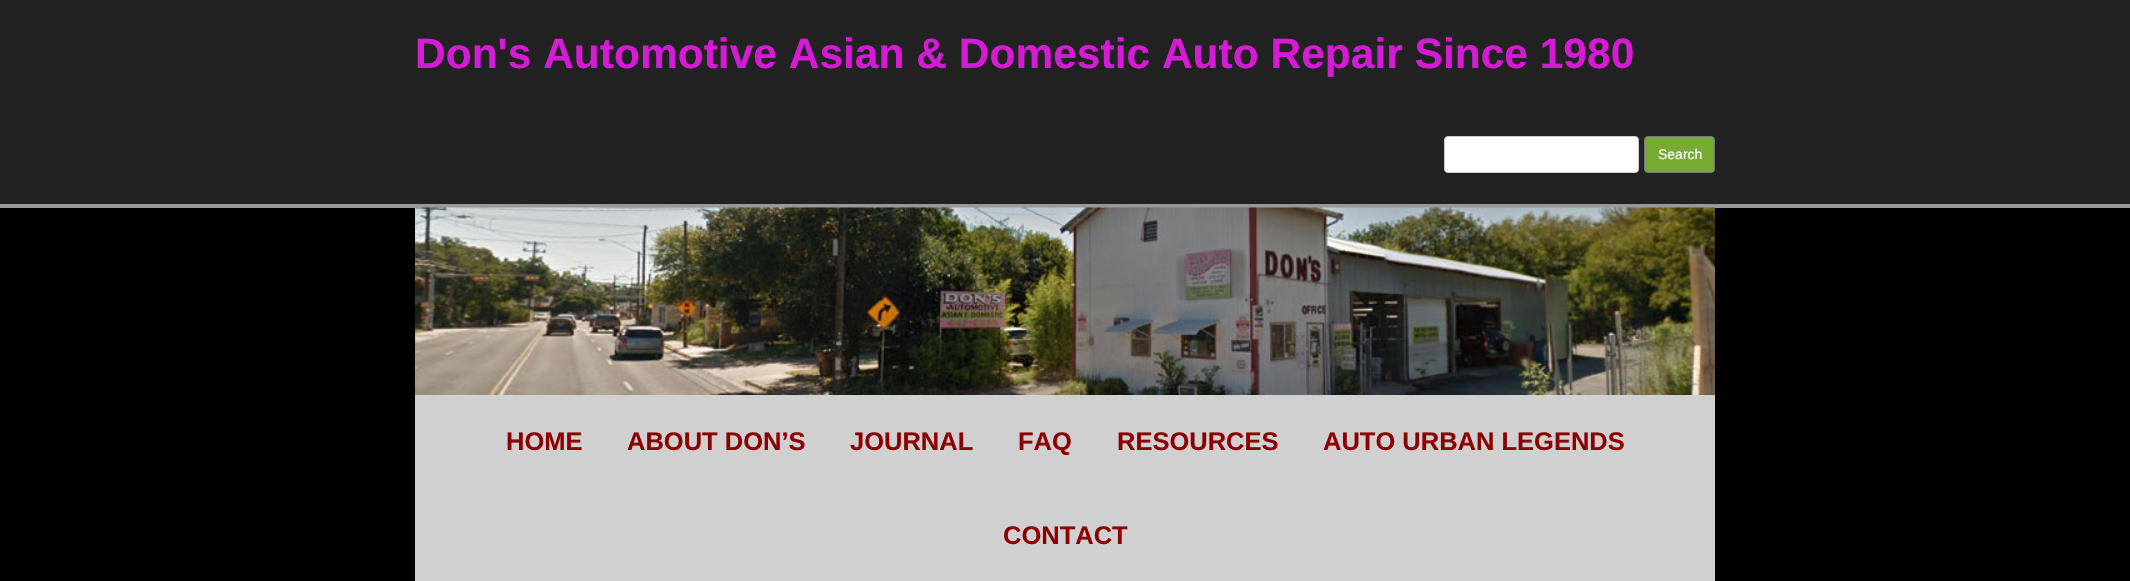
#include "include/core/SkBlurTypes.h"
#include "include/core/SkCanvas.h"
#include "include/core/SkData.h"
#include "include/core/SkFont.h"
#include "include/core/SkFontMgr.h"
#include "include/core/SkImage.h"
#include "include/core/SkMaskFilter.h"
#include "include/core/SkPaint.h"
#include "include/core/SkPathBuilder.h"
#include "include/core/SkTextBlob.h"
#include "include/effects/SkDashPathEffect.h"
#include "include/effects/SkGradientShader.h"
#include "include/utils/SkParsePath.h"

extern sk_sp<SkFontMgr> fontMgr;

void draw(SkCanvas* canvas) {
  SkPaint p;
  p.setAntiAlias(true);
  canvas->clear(SK_ColorBLACK);
  p.setColor(SkColorSetRGB(34, 34, 34));
  canvas->drawRect(SkRect::MakeLTRB(0, 0, 2130, 204), p);
  p.setColor(SkColorSetRGB(153, 153, 153));
  canvas->drawRect(SkRect::MakeLTRB(0, 204, 2130, 208), p);
  p.setColor(SK_ColorWHITE);
  canvas->drawRoundRect(SkRect::MakeLTRB(1444.5f, 136.5f, 1638.5f, 172.5f), 3.5f, 3.5f, p);
  p.setStyle(SkPaint::kStroke_Style);
  p.setStrokeWidth(1);
  p.setColor(SkColorSetRGB(204, 204, 204));
  canvas->drawRoundRect(SkRect::MakeLTRB(1444.5f, 136.5f, 1638.5f, 172.5f), 3.5f, 3.5f, p);
  p.setStyle(SkPaint::kFill_Style);
  p.setColor(SkColorSetRGB(119, 170, 51));
  canvas->drawRoundRect(SkRect::MakeLTRB(1644.5f, 136.5f, 1714.5f, 172.5f), 3.5f, 3.5f, p);
  p.setStyle(SkPaint::kStroke_Style);
  p.setColor(SkColorSetRGB(119, 119, 119));
  canvas->drawRoundRect(SkRect::MakeLTRB(1644.5f, 136.5f, 1714.5f, 172.5f), 3.5f, 3.5f, p);
  canvas->drawImageRect(SkImages::DeferredFromEncodedData(SkData::MakeFromFileName("images/1.png")), SkRect::MakeLTRB(415, 207, 1715, 395), SkSamplingOptions());
  p.setStyle(SkPaint::kFill_Style);
  p.setColor(SkColorSetRGB(208, 208, 208));
  canvas->drawRect(SkRect::MakeLTRB(415, 395, 1715, 581), p);
  SkFont font1(fontMgr->matchFamilyStyle("Liberation Sans", SkFontStyle::Bold()), 42.5f);
  font1.setSubpixel(true);
  p.setColor(SkColorSetRGB(214, 27, 214));
  canvas->drawString("Don's Automotive Asian & Domestic Auto Repair Since 1980", 415, 68, font1, p);
  SkFont font2(fontMgr->matchFamilyStyle("Liberation Sans", SkFontStyle::Normal()), 14);
  font2.setSubpixel(true);
  p.setColor(SK_ColorWHITE);
  canvas->drawString("Search", 1658, 159, font2, p);
  SkFont font3(fontMgr->matchFamilyStyle("Liberation Sans", SkFontStyle::Bold()), 25.5f);
  font3.setSubpixel(true);
  p.setColor(SkColorSetRGB(139, 0, 0));
  canvas->drawString("HOME", 506, 450, font3, p);
  canvas->drawString("ABOUT DON’S", 627, 450, font3, p);
  canvas->drawString("JOURNAL", 850, 450, font3, p);
  canvas->drawString("FAQ", 1018, 450, font3, p);
  canvas->drawString("RESOURCES", 1117, 450, font3, p);
  canvas->drawString("AUTO URBAN LEGENDS", 1323, 450, font3, p);
  canvas->drawString("CONTACT", 1003, 544, font3, p);
}
